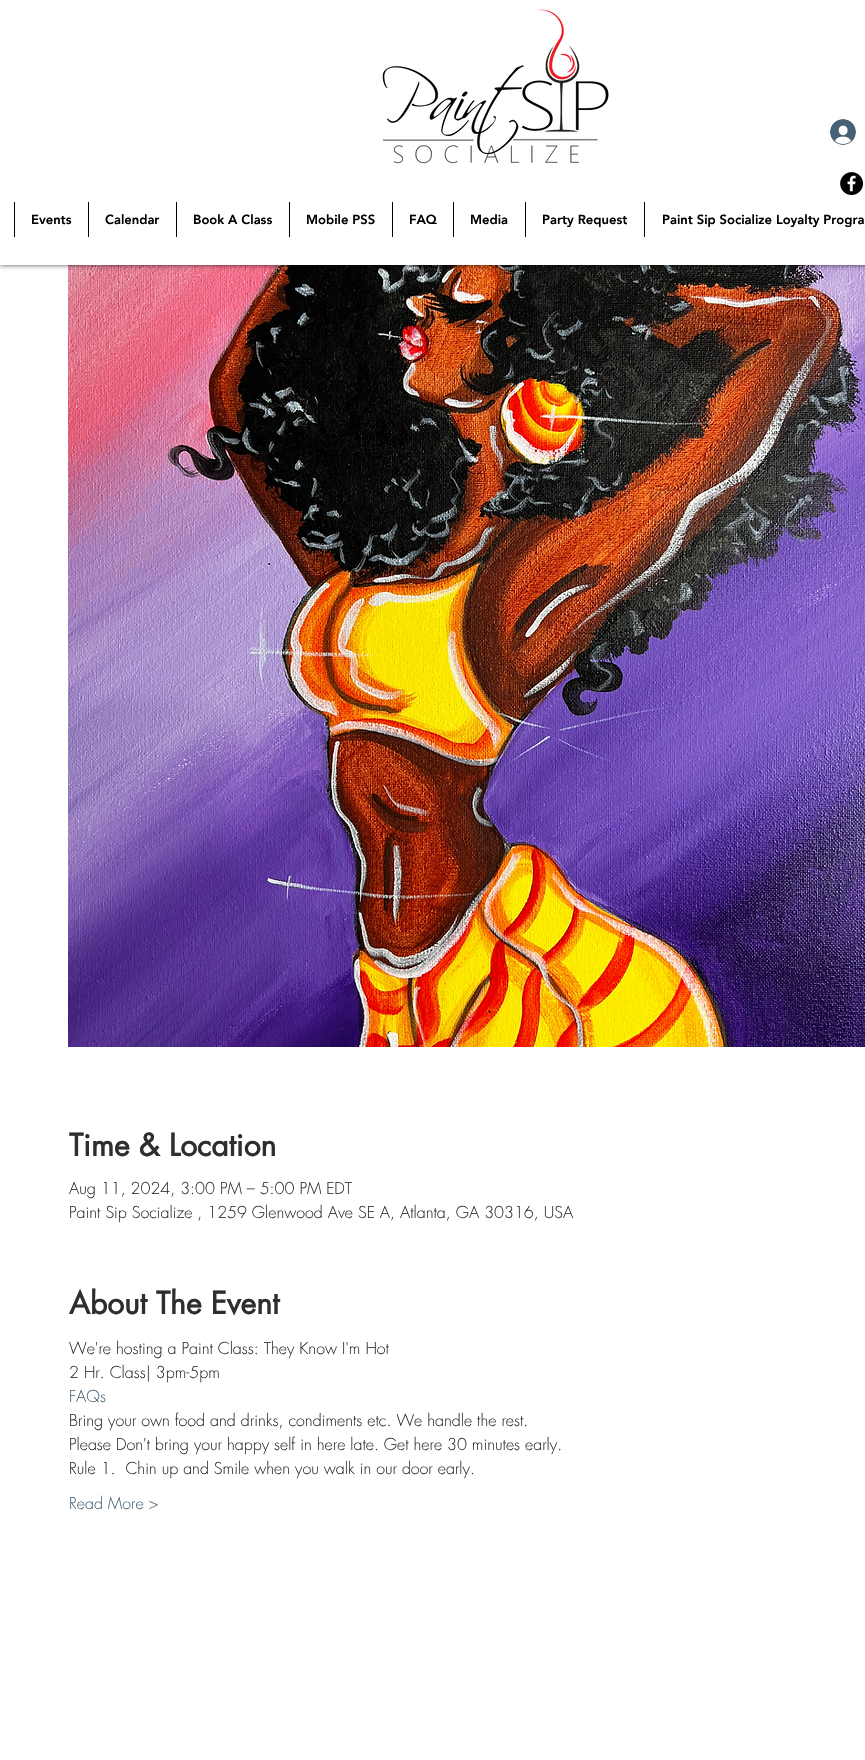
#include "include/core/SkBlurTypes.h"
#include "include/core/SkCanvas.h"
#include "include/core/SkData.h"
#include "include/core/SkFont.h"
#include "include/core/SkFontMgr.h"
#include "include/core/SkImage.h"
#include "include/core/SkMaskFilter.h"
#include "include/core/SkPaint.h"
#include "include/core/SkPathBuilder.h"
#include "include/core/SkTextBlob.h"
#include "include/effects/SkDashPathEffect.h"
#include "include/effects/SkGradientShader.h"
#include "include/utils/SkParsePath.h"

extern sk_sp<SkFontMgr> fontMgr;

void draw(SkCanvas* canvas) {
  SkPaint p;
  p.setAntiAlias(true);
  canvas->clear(SK_ColorWHITE);
  canvas->drawImageRect(SkImages::DeferredFromEncodedData(SkData::MakeFromFileName("images/4.png")), SkRect::MakeLTRB(68, 265, 865, 1047), SkSamplingOptions());
  p.setColor(SkColorSetARGB(179, 0, 0, 0));
  p.setMaskFilter(SkMaskFilter::MakeBlur(kNormal_SkBlurStyle, 2.5f));
  canvas->drawRect(SkRect::MakeLTRB(0, 0, 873, 265), p);
  p.setMaskFilter(nullptr);
  p.setColor(SK_ColorWHITE);
  canvas->drawRect(SkRect::MakeLTRB(0, 0, 865, 265), p);
  canvas->drawImageRect(SkImages::DeferredFromEncodedData(SkData::MakeFromFileName("images/1.png")), SkRect::MakeLTRB(382, 9, 609, 164), SkSamplingOptions());
  canvas->drawImageRect(SkImages::DeferredFromEncodedData(SkData::MakeFromFileName("images/2.png")), SkRect::MakeLTRB(830, 119, 856, 145), SkSamplingOptions());
  canvas->drawImageRect(SkImages::DeferredFromEncodedData(SkData::MakeFromFileName("images/3.png")), SkRect::MakeLTRB(840, 172, 863, 195), SkSamplingOptions());
  p.setColor(SK_ColorBLACK);
  canvas->drawRect(SkRect::MakeLTRB(14, 202, 15, 237), p);
  canvas->drawRect(SkRect::MakeLTRB(88, 202, 89, 237), p);
  canvas->drawRect(SkRect::MakeLTRB(176, 202, 177, 237), p);
  canvas->drawRect(SkRect::MakeLTRB(289, 202, 290, 237), p);
  canvas->drawRect(SkRect::MakeLTRB(392, 202, 393, 237), p);
  canvas->drawRect(SkRect::MakeLTRB(453, 202, 454, 237), p);
  canvas->drawRect(SkRect::MakeLTRB(525, 202, 526, 237), p);
  canvas->drawRect(SkRect::MakeLTRB(644, 202, 645, 237), p);
  SkFont font1(fontMgr->matchFamilyStyle("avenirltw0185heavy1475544", SkFontStyle(900, SkFontStyle::kNormal_Width, SkFontStyle::kUpright_Slant)), 13);
  font1.setSubpixel(true);
  canvas->drawString("Events", 31, 224, font1, p);
  canvas->drawString("Calendar", 105, 224, font1, p);
  canvas->drawString("Book A Class", 193, 224, font1, p);
  canvas->drawString("Mobile PSS", 306, 224, font1, p);
  canvas->drawString("FAQ", 409, 224, font1, p);
  canvas->drawString("Media", 470, 224, font1, p);
  canvas->drawString("Party Request", 542, 224, font1, p);
  canvas->drawString("Paint Sip Socialize Loyalty Progra", 662, 224, font1, p);
  SkFont font2(fontMgr->matchFamilyStyle("futura", SkFontStyle::Bold()), 30);
  font2.setSubpixel(true);
  p.setColor(SkColorSetRGB(47, 46, 46));
  canvas->drawString("Time & Location", 69, 1156, font2, p);
  SkFont font3(fontMgr->matchFamilyStyle("futura", SkFontStyle(300, SkFontStyle::kNormal_Width, SkFontStyle::kUpright_Slant)), 16);
  font3.setSubpixel(true);
  canvas->drawString("Aug 11, 2024, 3:00 PM – 5:00 PM EDT", 69, 1194, font3, p);
  canvas->drawString("Paint Sip Socialize , 1259 Glenwood Ave SE A, Atlanta, GA 30316, USA", 69, 1218, font3, p);
  canvas->drawString("About The Event", 69, 1314, font2, p);
  canvas->drawString("We're hosting a Paint Class: They Know I'm Hot", 69, 1354, font3, p);
  canvas->drawString("2 Hr. Class| 3pm-5pm", 69, 1378, font3, p);
  p.setColor(SkColorSetRGB(71, 96, 116));
  canvas->drawString("FAQs", 69, 1402, font3, p);
  p.setColor(SkColorSetRGB(47, 46, 46));
  canvas->drawString("Bring your own food and drinks, condiments etc. We handle the rest.", 69, 1426, font3, p);
  canvas->drawString("Please Don't bring your happy self in here late. Get here 30 minutes early.", 69, 1450, font3, p);
  canvas->drawString("Rule 1.  Chin up and Smile when you walk in our door early.", 69, 1474, font3, p);
  p.setColor(SkColorSetRGB(71, 96, 116));
  canvas->drawString("Read More >", 69, 1509, font3, p);
}
